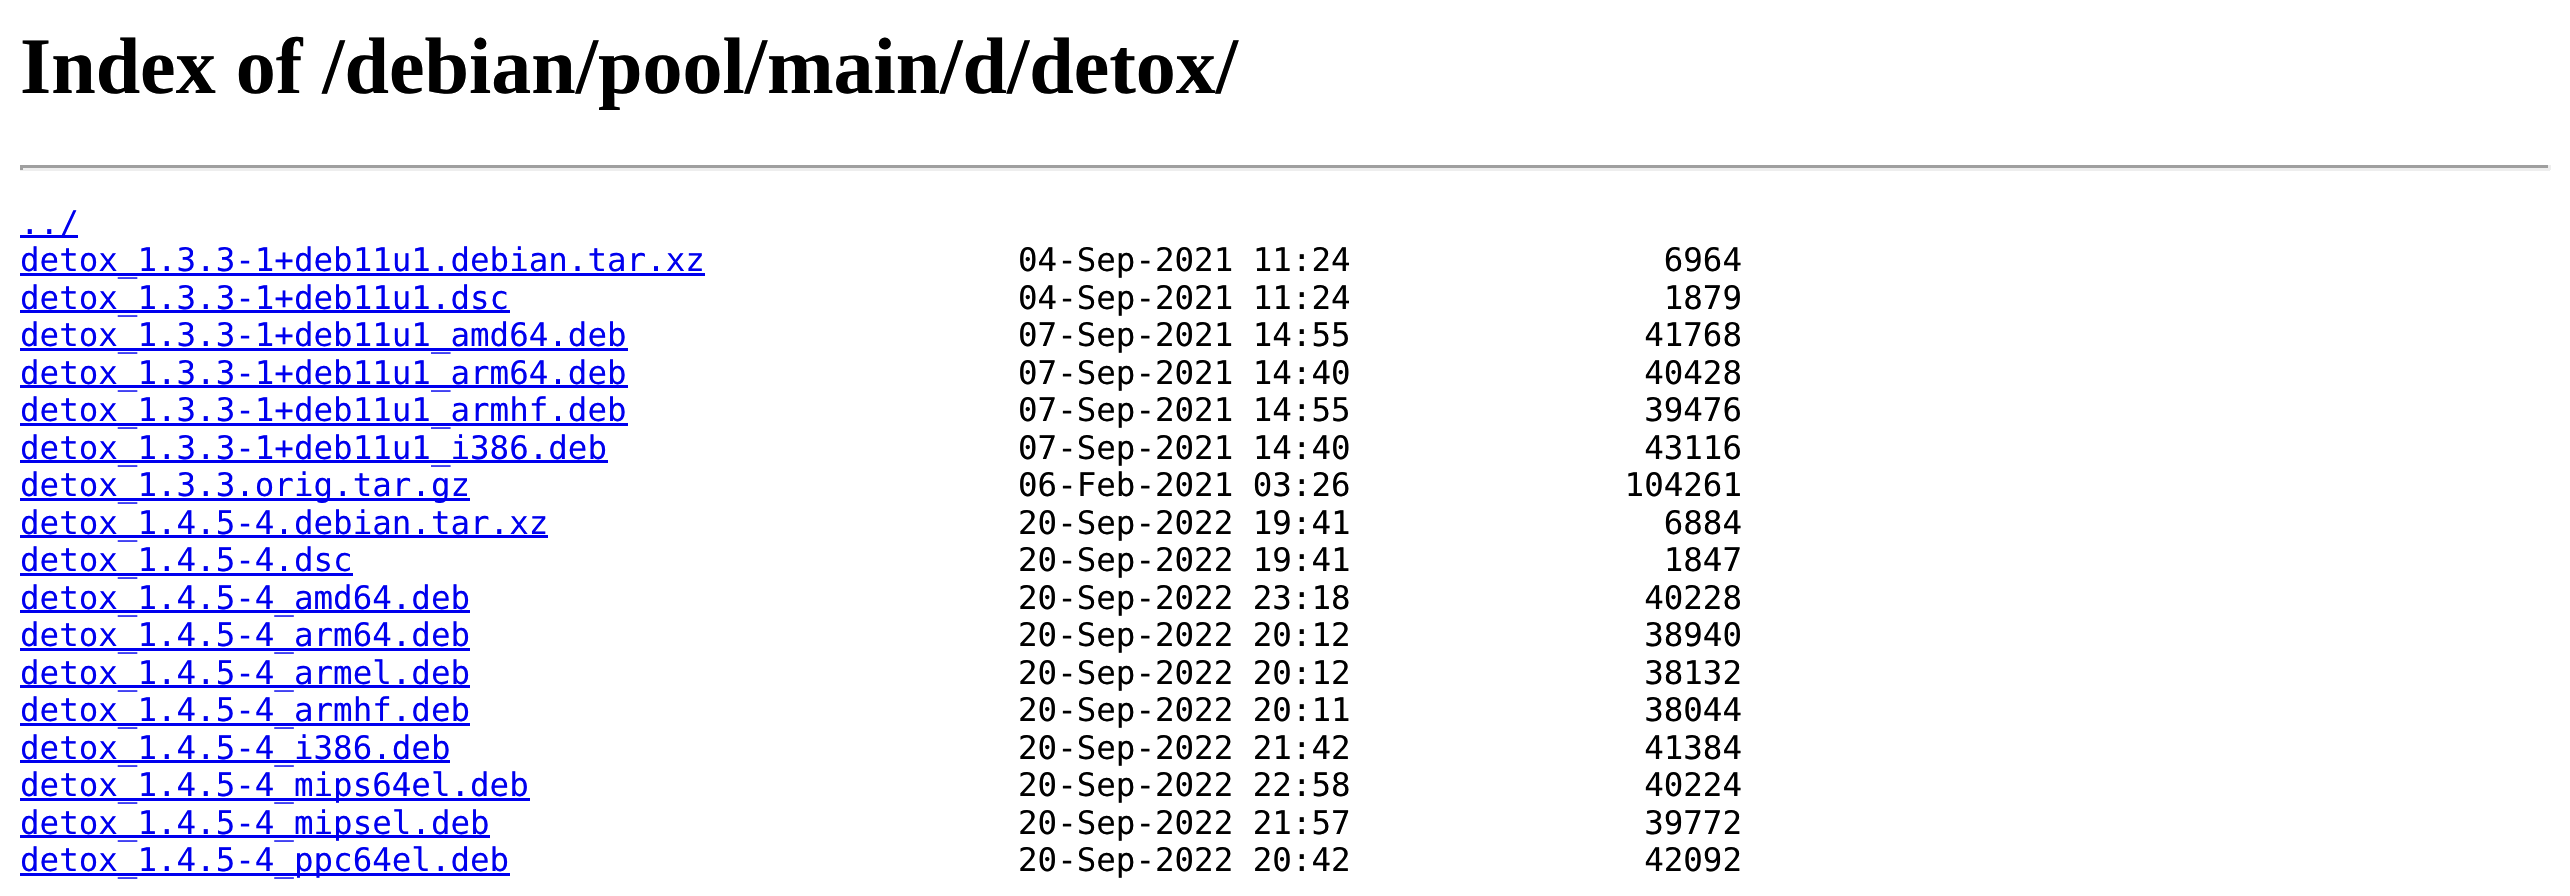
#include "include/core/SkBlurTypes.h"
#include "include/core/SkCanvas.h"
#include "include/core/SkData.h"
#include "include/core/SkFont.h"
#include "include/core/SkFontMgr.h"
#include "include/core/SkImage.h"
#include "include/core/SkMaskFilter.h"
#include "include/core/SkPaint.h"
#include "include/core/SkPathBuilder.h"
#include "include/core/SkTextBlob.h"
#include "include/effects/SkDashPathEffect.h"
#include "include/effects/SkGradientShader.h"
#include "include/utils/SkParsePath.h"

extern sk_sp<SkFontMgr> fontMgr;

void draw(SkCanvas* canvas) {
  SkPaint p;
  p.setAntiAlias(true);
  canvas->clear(SK_ColorWHITE);
  p.setColor(SkColorSetRGB(159, 159, 159));
  canvas->drawRect(SkRect::MakeLTRB(20, 165, 2550, 168), p);
  p.setColor(SkColorSetRGB(238, 238, 238));
  canvas->drawRect(SkRect::MakeLTRB(2548, 165, 2551, 170), p);
  canvas->drawRect(SkRect::MakeLTRB(20, 168, 2550, 171), p);
  p.setColor(SkColorSetRGB(159, 159, 159));
  canvas->drawRect(SkRect::MakeLTRB(20, 165, 23, 170), p);
  p.setColor(SkColorSetRGB(0, 0, 238));
  canvas->drawRect(SkRect::MakeLTRB(20, 235, 78, 238), p);
  canvas->drawRect(SkRect::MakeLTRB(20, 273, 705, 276), p);
  canvas->drawRect(SkRect::MakeLTRB(20, 310, 510, 313), p);
  canvas->drawRect(SkRect::MakeLTRB(20, 348, 628, 351), p);
  canvas->drawRect(SkRect::MakeLTRB(20, 385, 628, 388), p);
  canvas->drawRect(SkRect::MakeLTRB(20, 423, 628, 426), p);
  canvas->drawRect(SkRect::MakeLTRB(20, 460, 608, 463), p);
  canvas->drawRect(SkRect::MakeLTRB(20, 498, 470, 501), p);
  canvas->drawRect(SkRect::MakeLTRB(20, 535, 548, 538), p);
  canvas->drawRect(SkRect::MakeLTRB(20, 573, 353, 576), p);
  canvas->drawRect(SkRect::MakeLTRB(20, 610, 470, 613), p);
  canvas->drawRect(SkRect::MakeLTRB(20, 648, 470, 651), p);
  canvas->drawRect(SkRect::MakeLTRB(20, 685, 470, 688), p);
  canvas->drawRect(SkRect::MakeLTRB(20, 723, 470, 726), p);
  canvas->drawRect(SkRect::MakeLTRB(20, 760, 450, 763), p);
  canvas->drawRect(SkRect::MakeLTRB(20, 798, 530, 801), p);
  canvas->drawRect(SkRect::MakeLTRB(20, 835, 490, 838), p);
  canvas->drawRect(SkRect::MakeLTRB(20, 873, 510, 876), p);
  SkFont font1(fontMgr->matchFamilyStyle("Liberation Serif", SkFontStyle::Bold()), 80);
  font1.setSubpixel(true);
  p.setColor(SK_ColorBLACK);
  canvas->drawString("Index of /debian/pool/main/d/detox/", 20, 93, font1, p);
  SkFont font2(fontMgr->matchFamilyStyle("DejaVu Sans Mono", SkFontStyle::Normal()), 32.5f);
  font2.setSubpixel(true);
  p.setColor(SkColorSetRGB(0, 0, 238));
  canvas->drawString("../", 20, 234, font2, p);
  canvas->drawString("detox_1.3.3-1+deb11u1.debian.tar.xz", 20, 271, font2, p);
  p.setColor(SK_ColorBLACK);
  canvas->drawString("04-Sep-2021 11:24                6964", 1018, 271, font2, p);
  p.setColor(SkColorSetRGB(0, 0, 238));
  canvas->drawString("detox_1.3.3-1+deb11u1.dsc", 20, 309, font2, p);
  p.setColor(SK_ColorBLACK);
  canvas->drawString("04-Sep-2021 11:24                1879", 1018, 309, font2, p);
  p.setColor(SkColorSetRGB(0, 0, 238));
  canvas->drawString("detox_1.3.3-1+deb11u1_amd64.deb", 20, 346, font2, p);
  p.setColor(SK_ColorBLACK);
  canvas->drawString("07-Sep-2021 14:55               41768", 1018, 346, font2, p);
  p.setColor(SkColorSetRGB(0, 0, 238));
  canvas->drawString("detox_1.3.3-1+deb11u1_arm64.deb", 20, 384, font2, p);
  p.setColor(SK_ColorBLACK);
  canvas->drawString("07-Sep-2021 14:40               40428", 1018, 384, font2, p);
  p.setColor(SkColorSetRGB(0, 0, 238));
  canvas->drawString("detox_1.3.3-1+deb11u1_armhf.deb", 20, 421, font2, p);
  p.setColor(SK_ColorBLACK);
  canvas->drawString("07-Sep-2021 14:55               39476", 1018, 421, font2, p);
  p.setColor(SkColorSetRGB(0, 0, 238));
  canvas->drawString("detox_1.3.3-1+deb11u1_i386.deb", 20, 459, font2, p);
  p.setColor(SK_ColorBLACK);
  canvas->drawString("07-Sep-2021 14:40               43116", 1018, 459, font2, p);
  p.setColor(SkColorSetRGB(0, 0, 238));
  canvas->drawString("detox_1.3.3.orig.tar.gz", 20, 496, font2, p);
  p.setColor(SK_ColorBLACK);
  canvas->drawString("06-Feb-2021 03:26              104261", 1018, 496, font2, p);
  p.setColor(SkColorSetRGB(0, 0, 238));
  canvas->drawString("detox_1.4.5-4.debian.tar.xz", 20, 534, font2, p);
  p.setColor(SK_ColorBLACK);
  canvas->drawString("20-Sep-2022 19:41                6884", 1018, 534, font2, p);
  p.setColor(SkColorSetRGB(0, 0, 238));
  canvas->drawString("detox_1.4.5-4.dsc", 20, 571, font2, p);
  p.setColor(SK_ColorBLACK);
  canvas->drawString("20-Sep-2022 19:41                1847", 1018, 571, font2, p);
  p.setColor(SkColorSetRGB(0, 0, 238));
  canvas->drawString("detox_1.4.5-4_amd64.deb", 20, 609, font2, p);
  p.setColor(SK_ColorBLACK);
  canvas->drawString("20-Sep-2022 23:18               40228", 1018, 609, font2, p);
  p.setColor(SkColorSetRGB(0, 0, 238));
  canvas->drawString("detox_1.4.5-4_arm64.deb", 20, 646, font2, p);
  p.setColor(SK_ColorBLACK);
  canvas->drawString("20-Sep-2022 20:12               38940", 1018, 646, font2, p);
  p.setColor(SkColorSetRGB(0, 0, 238));
  canvas->drawString("detox_1.4.5-4_armel.deb", 20, 684, font2, p);
  p.setColor(SK_ColorBLACK);
  canvas->drawString("20-Sep-2022 20:12               38132", 1018, 684, font2, p);
  p.setColor(SkColorSetRGB(0, 0, 238));
  canvas->drawString("detox_1.4.5-4_armhf.deb", 20, 721, font2, p);
  p.setColor(SK_ColorBLACK);
  canvas->drawString("20-Sep-2022 20:11               38044", 1018, 721, font2, p);
  p.setColor(SkColorSetRGB(0, 0, 238));
  canvas->drawString("detox_1.4.5-4_i386.deb", 20, 759, font2, p);
  p.setColor(SK_ColorBLACK);
  canvas->drawString("20-Sep-2022 21:42               41384", 1018, 759, font2, p);
  p.setColor(SkColorSetRGB(0, 0, 238));
  canvas->drawString("detox_1.4.5-4_mips64el.deb", 20, 796, font2, p);
  p.setColor(SK_ColorBLACK);
  canvas->drawString("20-Sep-2022 22:58               40224", 1018, 796, font2, p);
  p.setColor(SkColorSetRGB(0, 0, 238));
  canvas->drawString("detox_1.4.5-4_mipsel.deb", 20, 834, font2, p);
  p.setColor(SK_ColorBLACK);
  canvas->drawString("20-Sep-2022 21:57               39772", 1018, 834, font2, p);
  p.setColor(SkColorSetRGB(0, 0, 238));
  canvas->drawString("detox_1.4.5-4_ppc64el.deb", 20, 871, font2, p);
  p.setColor(SK_ColorBLACK);
  canvas->drawString("20-Sep-2022 20:42               42092", 1018, 871, font2, p);
}
